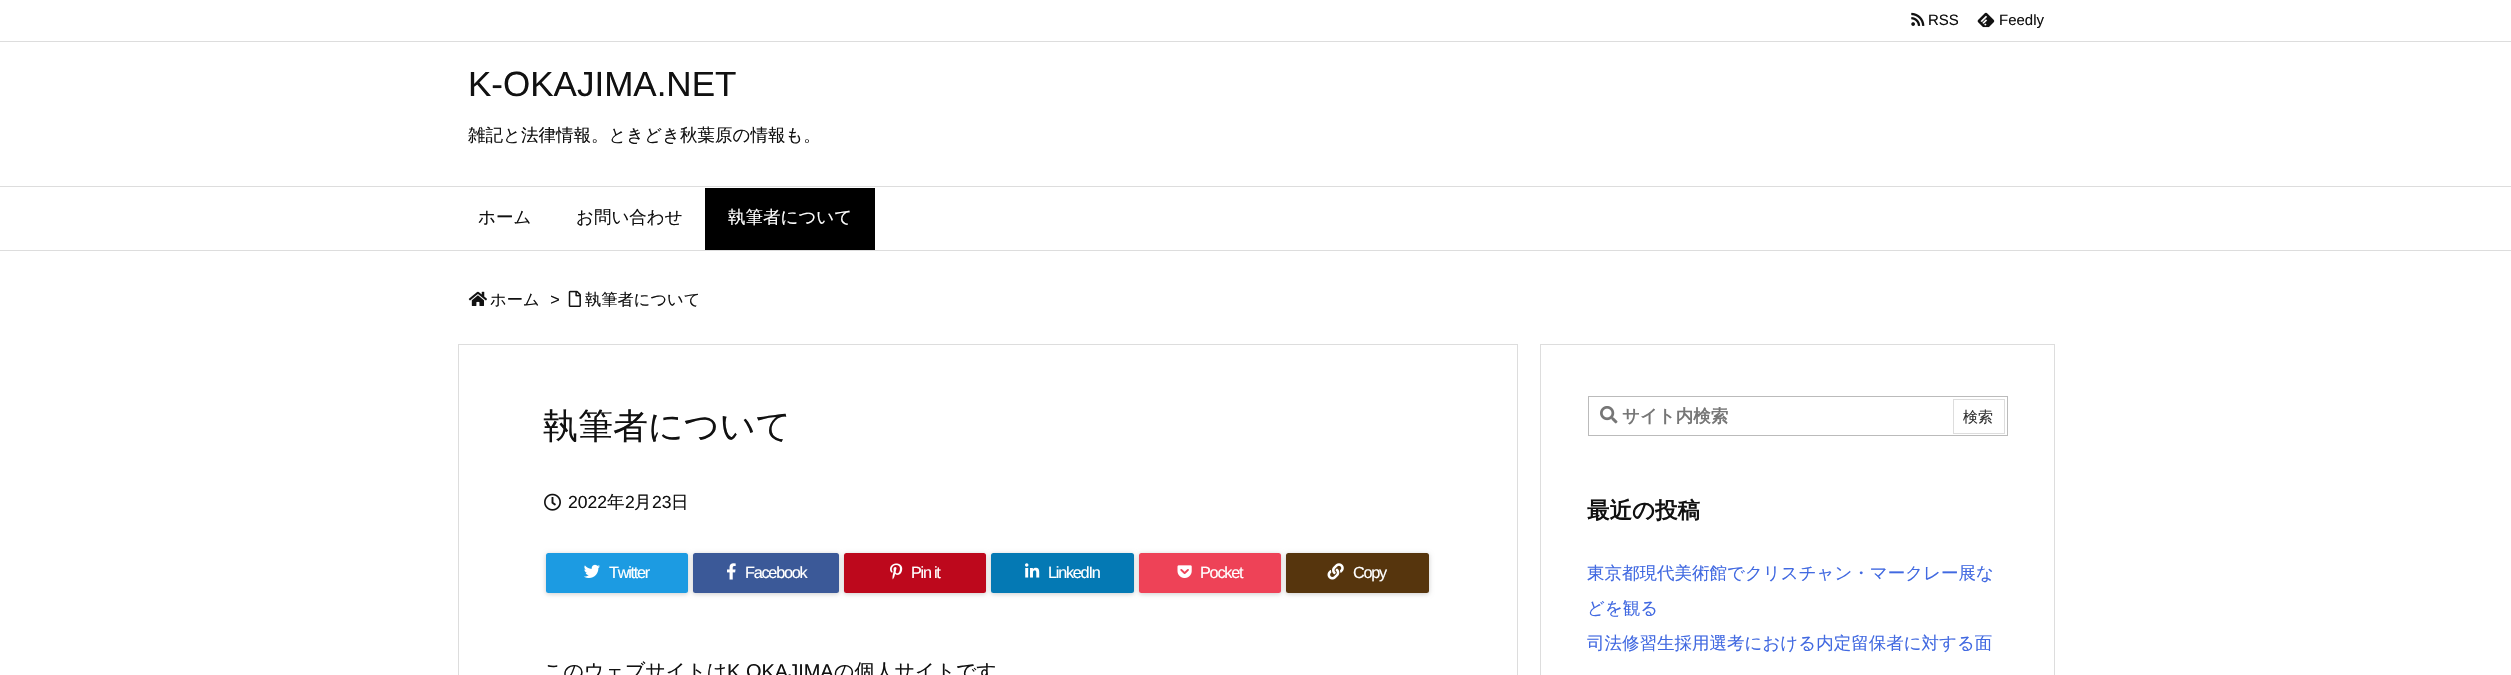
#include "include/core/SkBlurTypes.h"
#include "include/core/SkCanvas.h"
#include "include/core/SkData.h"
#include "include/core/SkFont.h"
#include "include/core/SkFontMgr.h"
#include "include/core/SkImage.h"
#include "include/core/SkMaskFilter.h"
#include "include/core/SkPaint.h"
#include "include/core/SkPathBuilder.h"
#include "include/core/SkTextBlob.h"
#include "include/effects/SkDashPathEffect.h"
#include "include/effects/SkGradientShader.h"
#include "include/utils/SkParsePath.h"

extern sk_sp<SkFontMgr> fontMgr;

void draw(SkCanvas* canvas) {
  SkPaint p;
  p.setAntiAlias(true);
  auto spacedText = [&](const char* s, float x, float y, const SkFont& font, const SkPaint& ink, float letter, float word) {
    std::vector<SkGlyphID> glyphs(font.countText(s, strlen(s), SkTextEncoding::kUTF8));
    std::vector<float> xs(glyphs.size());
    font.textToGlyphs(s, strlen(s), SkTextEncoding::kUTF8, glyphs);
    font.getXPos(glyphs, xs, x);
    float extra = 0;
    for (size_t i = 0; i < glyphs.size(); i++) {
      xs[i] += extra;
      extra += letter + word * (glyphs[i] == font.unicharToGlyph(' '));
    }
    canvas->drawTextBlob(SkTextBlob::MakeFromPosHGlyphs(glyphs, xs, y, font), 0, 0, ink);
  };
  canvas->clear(SK_ColorWHITE);
  p.setColor(SkColorSetRGB(221, 221, 221));
  canvas->drawRect(SkRect::MakeLTRB(0, 41, 2511, 42), p);
  canvas->drawImageRect(SkImages::DeferredFromEncodedData(SkData::MakeFromFileName("images/1.png")), SkRect::MakeLTRB(1911, 12, 1925, 26), SkSamplingOptions());
  canvas->drawImageRect(SkImages::DeferredFromEncodedData(SkData::MakeFromFileName("images/2.png")), SkRect::MakeLTRB(1977, 12, 1995, 28), SkSamplingOptions());
  canvas->drawRect(SkRect::MakeLTRB(0, 186, 2511, 187), p);
  canvas->drawRect(SkRect::MakeLTRB(0, 250, 2511, 251), p);
  p.setColor(SK_ColorBLACK);
  canvas->drawRect(SkRect::MakeLTRB(705, 188, 875, 250), p);
  canvas->drawImageRect(SkImages::DeferredFromEncodedData(SkData::MakeFromFileName("images/3.png")), SkRect::MakeLTRB(468, 291, 487, 306), SkSamplingOptions());
  canvas->drawImageRect(SkImages::DeferredFromEncodedData(SkData::MakeFromFileName("images/4.png")), SkRect::MakeLTRB(568, 290, 581, 307), SkSamplingOptions());
  p.setStyle(SkPaint::kStroke_Style);
  p.setStrokeWidth(1);
  p.setColor(SkColorSetRGB(221, 221, 221));
  canvas->drawRect(SkRect::MakeLTRB(458.5f, 344.5f, 1517.5f, 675.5f), p);
  canvas->drawImageRect(SkImages::DeferredFromEncodedData(SkData::MakeFromFileName("images/5.png")), SkRect::MakeLTRB(544, 493, 561, 511), SkSamplingOptions());
  p.setStyle(SkPaint::kFill_Style);
  p.setColor(SkColorSetARGB(51, 0, 0, 0));
  p.setMaskFilter(SkMaskFilter::MakeBlur(kNormal_SkBlurStyle, 2.5f));
  canvas->drawRoundRect(SkRect::MakeLTRB(546, 554, 688, 594), 2.5f, 2.5f, p);
  p.setMaskFilter(nullptr);
  p.setColor(SkColorSetRGB(28, 155, 226));
  canvas->drawRoundRect(SkRect::MakeLTRB(546, 553, 688, 593), 2.5f, 2.5f, p);
  canvas->drawImageRect(SkImages::DeferredFromEncodedData(SkData::MakeFromFileName("images/6.png")), SkRect::MakeLTRB(584, 564, 600, 578), SkSamplingOptions());
  p.setColor(SkColorSetARGB(51, 0, 0, 0));
  p.setMaskFilter(SkMaskFilter::MakeBlur(kNormal_SkBlurStyle, 2.5f));
  canvas->drawRoundRect(SkRect::MakeLTRB(693, 554, 839, 594), 2.5f, 2.5f, p);
  p.setMaskFilter(nullptr);
  p.setColor(SkColorSetRGB(59, 89, 152));
  canvas->drawRoundRect(SkRect::MakeLTRB(693, 553, 839, 593), 2.5f, 2.5f, p);
  canvas->drawImageRect(SkImages::DeferredFromEncodedData(SkData::MakeFromFileName("images/7.png")), SkRect::MakeLTRB(727, 563, 736, 580), SkSamplingOptions());
  p.setColor(SkColorSetARGB(51, 0, 0, 0));
  p.setMaskFilter(SkMaskFilter::MakeBlur(kNormal_SkBlurStyle, 2.5f));
  canvas->drawRoundRect(SkRect::MakeLTRB(844, 554, 986, 594), 2.5f, 2.5f, p);
  p.setMaskFilter(nullptr);
  p.setColor(SkColorSetRGB(189, 8, 28));
  canvas->drawRoundRect(SkRect::MakeLTRB(844, 553, 986, 593), 2.5f, 2.5f, p);
  canvas->drawImageRect(SkImages::DeferredFromEncodedData(SkData::MakeFromFileName("images/8.png")), SkRect::MakeLTRB(890, 563, 903, 580), SkSamplingOptions());
  p.setColor(SkColorSetARGB(51, 0, 0, 0));
  p.setMaskFilter(SkMaskFilter::MakeBlur(kNormal_SkBlurStyle, 2.5f));
  canvas->drawRoundRect(SkRect::MakeLTRB(991, 554, 1134, 594), 2.5f, 2.5f, p);
  p.setMaskFilter(nullptr);
  p.setColor(SkColorSetRGB(4, 121, 180));
  canvas->drawRoundRect(SkRect::MakeLTRB(991, 553, 1134, 593), 2.5f, 2.5f, p);
  canvas->drawImageRect(SkImages::DeferredFromEncodedData(SkData::MakeFromFileName("images/9.png")), SkRect::MakeLTRB(1025, 563, 1040, 578), SkSamplingOptions());
  p.setColor(SkColorSetARGB(51, 0, 0, 0));
  p.setMaskFilter(SkMaskFilter::MakeBlur(kNormal_SkBlurStyle, 2.5f));
  canvas->drawRoundRect(SkRect::MakeLTRB(1139, 554, 1281, 594), 2.5f, 2.5f, p);
  p.setMaskFilter(nullptr);
  p.setColor(SkColorSetRGB(238, 66, 87));
  canvas->drawRoundRect(SkRect::MakeLTRB(1139, 553, 1281, 593), 2.5f, 2.5f, p);
  canvas->drawImageRect(SkImages::DeferredFromEncodedData(SkData::MakeFromFileName("images/10.png")), SkRect::MakeLTRB(1177, 565, 1192, 578), SkSamplingOptions());
  p.setColor(SkColorSetARGB(51, 0, 0, 0));
  p.setMaskFilter(SkMaskFilter::MakeBlur(kNormal_SkBlurStyle, 2.5f));
  canvas->drawRoundRect(SkRect::MakeLTRB(1286, 554, 1429, 594), 2.5f, 2.5f, p);
  p.setMaskFilter(nullptr);
  p.setColor(SkColorSetRGB(86, 53, 13));
  canvas->drawRoundRect(SkRect::MakeLTRB(1286, 553, 1429, 593), 2.5f, 2.5f, p);
  canvas->drawImageRect(SkImages::DeferredFromEncodedData(SkData::MakeFromFileName("images/11.png")), SkRect::MakeLTRB(1327, 563, 1344, 580), SkSamplingOptions());
  p.setStyle(SkPaint::kStroke_Style);
  p.setColor(SkColorSetRGB(221, 221, 221));
  canvas->drawRect(SkRect::MakeLTRB(1540.5f, 344.5f, 2054.5f, 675.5f), p);
  p.setColor(SkColorSetRGB(187, 187, 187));
  canvas->drawRect(SkRect::MakeLTRB(1588.5f, 396.5f, 2007.5f, 435.5f), p);
  canvas->drawImageRect(SkImages::DeferredFromEncodedData(SkData::MakeFromFileName("images/12.png")), SkRect::MakeLTRB(1600, 406, 1618, 424), SkSamplingOptions());
  p.setColor(SkColorSetRGB(221, 221, 221));
  canvas->drawRect(SkRect::MakeLTRB(1953.5f, 399.5f, 2004.5f, 433.5f), p);
  SkFont font1(fontMgr->matchFamilyStyle("Liberation Sans", SkFontStyle::Normal()), 15);
  font1.setSubpixel(true);
  p.setStyle(SkPaint::kFill_Style);
  p.setColor(SkColorSetRGB(17, 17, 17));
  canvas->drawString("RSS", 1928, 25, font1, p);
  canvas->drawString("Feedly", 1999, 25, font1, p);
  SkFont font2(fontMgr->matchFamilyStyle("WenQuanYi Zen Hei", SkFontStyle(500, SkFontStyle::kNormal_Width, SkFontStyle::kUpright_Slant)), 17.5f);
  font2.setSubpixel(true);
  canvas->drawString("ホーム", 478, 223, font2, p);
  canvas->drawString("お問い合わせ", 576, 223, font2, p);
  p.setColor(SK_ColorWHITE);
  canvas->drawString("執筆者について", 728, 223, font2, p);
  SkFont font3(fontMgr->matchFamilyStyle("Liberation Sans", SkFontStyle::Normal()), 35);
  font3.setSubpixel(true);
  p.setColor(SkColorSetRGB(17, 17, 17));
  canvas->drawString("K-OKAJIMA.NET", 468, 96, font3, p);
  canvas->drawString("雑記と法律情報。ときどき秋葉原の情報も。", 468, 141, font2, p);
  SkFont font4(fontMgr->matchFamilyStyle("WenQuanYi Zen Hei", SkFontStyle(500, SkFontStyle::kNormal_Width, SkFontStyle::kUpright_Slant)), 16.25f);
  font4.setSubpixel(true);
  canvas->drawString("ホーム", 490, 305, font4, p);
  SkFont font5(fontMgr->matchFamilyStyle("Liberation Sans", SkFontStyle::Italic()), 16.25f);
  font5.setSubpixel(true);
  canvas->drawString(">", 550, 305, font5, p);
  canvas->drawString("執筆者について", 585, 305, font4, p);
  SkFont font6(fontMgr->matchFamilyStyle("WenQuanYi Zen Hei", SkFontStyle(500, SkFontStyle::kNormal_Width, SkFontStyle::kUpright_Slant)), 35);
  font6.setSubpixel(true);
  canvas->drawString("執筆者について", 543, 438, font6, p);
  SkFont font7(fontMgr->matchFamilyStyle("Liberation Sans", SkFontStyle::Normal()), 17.5f);
  font7.setSubpixel(true);
  canvas->drawString("2022", 568, 508, font7, p);
  canvas->drawString("年", 607, 508, font2, p);
  canvas->drawString("2", 625, 508, font7, p);
  canvas->drawString("月", 634, 508, font2, p);
  canvas->drawString("23", 652, 508, font7, p);
  canvas->drawString("日", 671, 508, font2, p);
  SkFont font8(fontMgr->matchFamilyStyle("Liberation Sans", SkFontStyle::Normal()), 16.25f);
  font8.setSubpixel(true);
  p.setColor(SK_ColorWHITE);
  spacedText("Twitter", 609, 578, font8, p, -1.25f, 0);
  spacedText("Facebook", 745, 578, font8, p, -1.25f, 0);
  spacedText("Pin it", 911, 578, font8, p, -1.25f, 0);
  spacedText("LinkedIn", 1048, 578, font8, p, -1.25f, 0);
  spacedText("Pocket", 1200, 578, font8, p, -1.25f, 0);
  spacedText("Copy", 1353, 578, font8, p, -1.25f, 0);
  SkFont font9(fontMgr->matchFamilyStyle("WenQuanYi Zen Hei", SkFontStyle(500, SkFontStyle::kNormal_Width, SkFontStyle::kUpright_Slant)), 20);
  font9.setSubpixel(true);
  p.setColor(SkColorSetRGB(17, 17, 17));
  canvas->drawString("このウェブサイトは", 543, 678, font9, p);
  SkFont font10(fontMgr->matchFamilyStyle("Liberation Sans", SkFontStyle::Normal()), 20);
  font10.setSubpixel(true);
  canvas->drawString("K.OKAJIMA", 727, 678, font10, p);
  canvas->drawString("の個人サイトです", 834, 678, font9, p);
  SkFont font11(fontMgr->matchFamilyStyle("WenQuanYi Zen Hei", SkFontStyle::Bold()), 17.5f);
  font11.setSubpixel(true);
  p.setColor(SkColorSetRGB(118, 118, 118));
  canvas->drawString("サイト内検索", 1622, 422, font11, p);
  SkFont font12(fontMgr->matchFamilyStyle("WenQuanYi Zen Hei", SkFontStyle(500, SkFontStyle::kNormal_Width, SkFontStyle::kUpright_Slant)), 15);
  font12.setSubpixel(true);
  p.setColor(SkColorSetRGB(51, 51, 51));
  canvas->drawString("検索", 1963, 422, font12, p);
  SkFont font13(fontMgr->matchFamilyStyle("WenQuanYi Zen Hei", SkFontStyle::Bold()), 22.5f);
  font13.setSubpixel(true);
  p.setColor(SkColorSetRGB(17, 17, 17));
  canvas->drawString("最近の投稿", 1587, 518, font13, p);
  p.setColor(SkColorSetRGB(65, 105, 225));
  canvas->drawString("東京都現代美術館でクリスチャン・マークレー展な", 1587, 579, font2, p);
  canvas->drawString("どを観る", 1587, 614, font2, p);
  canvas->drawString("司法修習生採用選考における内定留保者に対する面", 1587, 649, font2, p);
}
